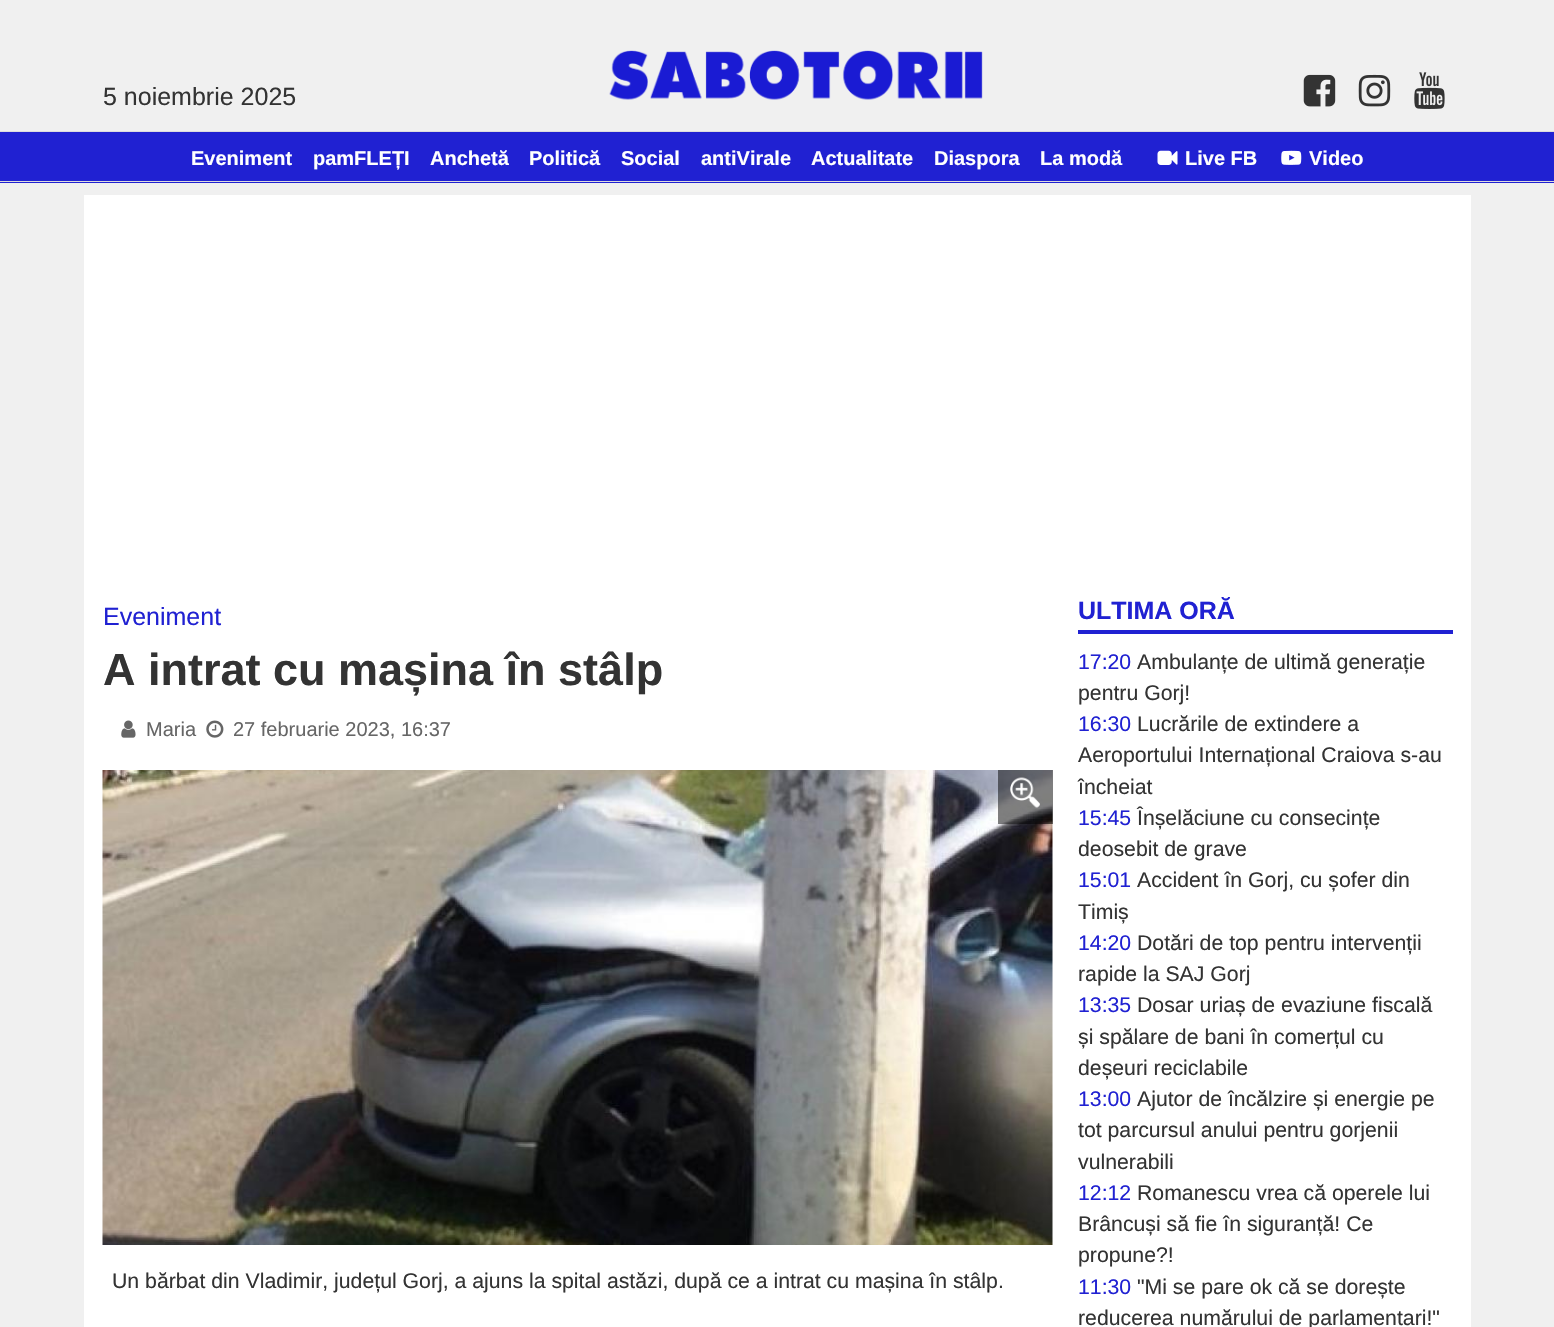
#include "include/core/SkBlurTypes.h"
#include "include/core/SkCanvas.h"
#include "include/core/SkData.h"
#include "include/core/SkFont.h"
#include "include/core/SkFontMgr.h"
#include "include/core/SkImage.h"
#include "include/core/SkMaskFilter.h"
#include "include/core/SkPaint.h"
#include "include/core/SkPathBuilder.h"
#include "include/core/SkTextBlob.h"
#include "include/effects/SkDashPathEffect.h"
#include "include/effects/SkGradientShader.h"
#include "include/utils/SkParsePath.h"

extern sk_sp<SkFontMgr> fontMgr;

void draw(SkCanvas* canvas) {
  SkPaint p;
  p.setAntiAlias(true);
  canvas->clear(SkColorSetRGB(240, 240, 240));
  canvas->drawImageRect(SkImages::DeferredFromEncodedData(SkData::MakeFromFileName("images/1.png")), SkRect::MakeLTRB(609, 50, 983, 100), SkSamplingOptions());
  canvas->drawImageRect(SkImages::DeferredFromEncodedData(SkData::MakeFromFileName("images/2.png")), SkRect::MakeLTRB(1303, 74, 1336, 107), SkSamplingOptions());
  canvas->drawImageRect(SkImages::DeferredFromEncodedData(SkData::MakeFromFileName("images/3.png")), SkRect::MakeLTRB(1358, 74, 1391, 107), SkSamplingOptions());
  canvas->drawImageRect(SkImages::DeferredFromEncodedData(SkData::MakeFromFileName("images/4.png")), SkRect::MakeLTRB(1414, 72, 1445, 109), SkSamplingOptions());
  p.setColor(SkColorSetRGB(32, 33, 210));
  canvas->drawRect(SkRect::MakeLTRB(0, 132, 1554, 183), p);
  p.setColor(SkColorSetRGB(221, 221, 221));
  canvas->drawRect(SkRect::MakeLTRB(0, 131, 1554, 132), p);
  canvas->drawRect(SkRect::MakeLTRB(0, 181, 1554, 182), p);
  canvas->drawImageRect(SkImages::DeferredFromEncodedData(SkData::MakeFromFileName("images/5.png")), SkRect::MakeLTRB(1157, 150, 1178, 165), SkSamplingOptions());
  canvas->drawImageRect(SkImages::DeferredFromEncodedData(SkData::MakeFromFileName("images/6.png")), SkRect::MakeLTRB(1281, 150, 1302, 165), SkSamplingOptions());
  p.setColor(SK_ColorWHITE);
  canvas->drawRect(SkRect::MakeLTRB(84, 195, 1471, 1327), p);
  canvas->drawImageRect(SkImages::DeferredFromEncodedData(SkData::MakeFromFileName("images/7.png")), SkRect::MakeLTRB(121, 720, 136, 738), SkSamplingOptions());
  canvas->drawImageRect(SkImages::DeferredFromEncodedData(SkData::MakeFromFileName("images/8.png")), SkRect::MakeLTRB(206, 720, 224, 738), SkSamplingOptions());
  canvas->drawImageRect(SkImages::DeferredFromEncodedData(SkData::MakeFromFileName("images/9.png")), SkRect::MakeLTRB(102, 770, 1053, 1245), SkSamplingOptions());
  p.setColor(SkColorSetARGB(128, 0, 0, 0));
  canvas->drawRect(SkRect::MakeLTRB(998, 770, 1053, 824), p);
  canvas->drawImageRect(SkImages::DeferredFromEncodedData(SkData::MakeFromFileName("images/10.png")), SkRect::MakeLTRB(1010, 777, 1040, 808), SkSamplingOptions());
  p.setColor(SkColorSetRGB(32, 33, 210));
  canvas->drawRect(SkRect::MakeLTRB(1078, 630, 1453, 634), p);
  SkFont font1(fontMgr->matchFamilyStyle("Liberation Sans", SkFontStyle::Normal()), 25);
  font1.setSubpixel(true);
  p.setColor(SkColorSetRGB(51, 51, 51));
  canvas->drawString("5 noiembrie 2025", 103, 105, font1, p);
  SkFont font2(fontMgr->matchFamilyStyle("Liberation Sans", SkFontStyle::Bold()), 20);
  font2.setSubpixel(true);
  p.setColor(SK_ColorWHITE);
  canvas->drawString("Eveniment", 191, 165, font2, p);
  canvas->drawString("pamFLEȚI", 313, 165, font2, p);
  canvas->drawString("Anchetă", 430, 165, font2, p);
  canvas->drawString("Politică", 529, 165, font2, p);
  canvas->drawString("Social", 621, 165, font2, p);
  canvas->drawString("antiVirale", 701, 165, font2, p);
  canvas->drawString("Actualitate", 811, 165, font2, p);
  canvas->drawString("Diaspora", 934, 165, font2, p);
  canvas->drawString("La modă", 1040, 165, font2, p);
  canvas->drawString("Live FB", 1185, 165, font2, p);
  canvas->drawString("Video", 1309, 165, font2, p);
  p.setColor(SkColorSetRGB(32, 33, 210));
  canvas->drawString("Eveniment", 103, 625, font1, p);
  SkFont font3(fontMgr->matchFamilyStyle("Liberation Sans", SkFontStyle::Bold()), 45);
  font3.setSubpixel(true);
  p.setColor(SkColorSetRGB(51, 51, 51));
  canvas->drawString("A intrat cu mașina în stâlp", 103, 685, font3, p);
  SkFont font4(fontMgr->matchFamilyStyle("Liberation Sans", SkFontStyle::Normal()), 20);
  font4.setSubpixel(true);
  p.setColor(SkColorSetRGB(102, 102, 102));
  canvas->drawString("Maria", 146, 736, font4, p);
  canvas->drawString("27 februarie 2023, 16:37", 233, 736, font4, p);
  SkFont font5(fontMgr->matchFamilyStyle("Liberation Sans", SkFontStyle::Normal()), 21.25f);
  font5.setSubpixel(true);
  p.setColor(SkColorSetRGB(51, 51, 51));
  canvas->drawString("Un bărbat din Vladimir, județul Gorj, a ajuns la spital astăzi, după ce a intrat cu mașina în stâlp.", 112, 1288, font5, p);
  SkFont font6(fontMgr->matchFamilyStyle("Liberation Sans", SkFontStyle::Bold()), 25);
  font6.setSubpixel(true);
  p.setColor(SkColorSetRGB(32, 33, 210));
  canvas->drawString("ULTIMA ORĂ", 1078, 619, font6, p);
  canvas->drawString("17:20", 1078, 669, font5, p);
  p.setColor(SkColorSetRGB(51, 51, 51));
  canvas->drawString("Ambulanțe de ultimă generație", 1137, 669, font5, p);
  canvas->drawString("pentru Gorj!", 1078, 700, font5, p);
  p.setColor(SkColorSetRGB(32, 33, 210));
  canvas->drawString("16:30", 1078, 731, font5, p);
  p.setColor(SkColorSetRGB(51, 51, 51));
  canvas->drawString("Lucrările de extindere a", 1137, 731, font5, p);
  canvas->drawString("Aeroportului Internațional Craiova s-au", 1078, 762, font5, p);
  canvas->drawString("încheiat", 1078, 794, font5, p);
  p.setColor(SkColorSetRGB(32, 33, 210));
  canvas->drawString("15:45", 1078, 825, font5, p);
  p.setColor(SkColorSetRGB(51, 51, 51));
  canvas->drawString("Înșelăciune cu consecințe", 1137, 825, font5, p);
  canvas->drawString("deosebit de grave", 1078, 856, font5, p);
  p.setColor(SkColorSetRGB(32, 33, 210));
  canvas->drawString("15:01", 1078, 887, font5, p);
  p.setColor(SkColorSetRGB(51, 51, 51));
  canvas->drawString("Accident în Gorj, cu șofer din", 1137, 887, font5, p);
  canvas->drawString("Timiș", 1078, 919, font5, p);
  p.setColor(SkColorSetRGB(32, 33, 210));
  canvas->drawString("14:20", 1078, 950, font5, p);
  p.setColor(SkColorSetRGB(51, 51, 51));
  canvas->drawString("Dotări de top pentru intervenții", 1137, 950, font5, p);
  canvas->drawString("rapide la SAJ Gorj", 1078, 981, font5, p);
  p.setColor(SkColorSetRGB(32, 33, 210));
  canvas->drawString("13:35", 1078, 1012, font5, p);
  p.setColor(SkColorSetRGB(51, 51, 51));
  canvas->drawString("Dosar uriaș de evaziune fiscală", 1137, 1012, font5, p);
  canvas->drawString("și spălare de bani în comerțul cu", 1078, 1044, font5, p);
  canvas->drawString("deșeuri reciclabile", 1078, 1075, font5, p);
  p.setColor(SkColorSetRGB(32, 33, 210));
  canvas->drawString("13:00", 1078, 1106, font5, p);
  p.setColor(SkColorSetRGB(51, 51, 51));
  canvas->drawString("Ajutor de încălzire și energie pe", 1137, 1106, font5, p);
  canvas->drawString("tot parcursul anului pentru gorjenii", 1078, 1137, font5, p);
  canvas->drawString("vulnerabili", 1078, 1169, font5, p);
  p.setColor(SkColorSetRGB(32, 33, 210));
  canvas->drawString("12:12", 1078, 1200, font5, p);
  p.setColor(SkColorSetRGB(51, 51, 51));
  canvas->drawString("Romanescu vrea că operele lui", 1137, 1200, font5, p);
  canvas->drawString("Brâncuși să fie în siguranță! Ce", 1078, 1231, font5, p);
  canvas->drawString("propune?!", 1078, 1262, font5, p);
  p.setColor(SkColorSetRGB(32, 33, 210));
  canvas->drawString("11:30", 1078, 1294, font5, p);
  p.setColor(SkColorSetRGB(51, 51, 51));
  canvas->drawString("\"Mi se pare ok că se dorește", 1137, 1294, font5, p);
  canvas->drawString("reducerea numărului de parlamentari!\"", 1078, 1325, font5, p);
}
